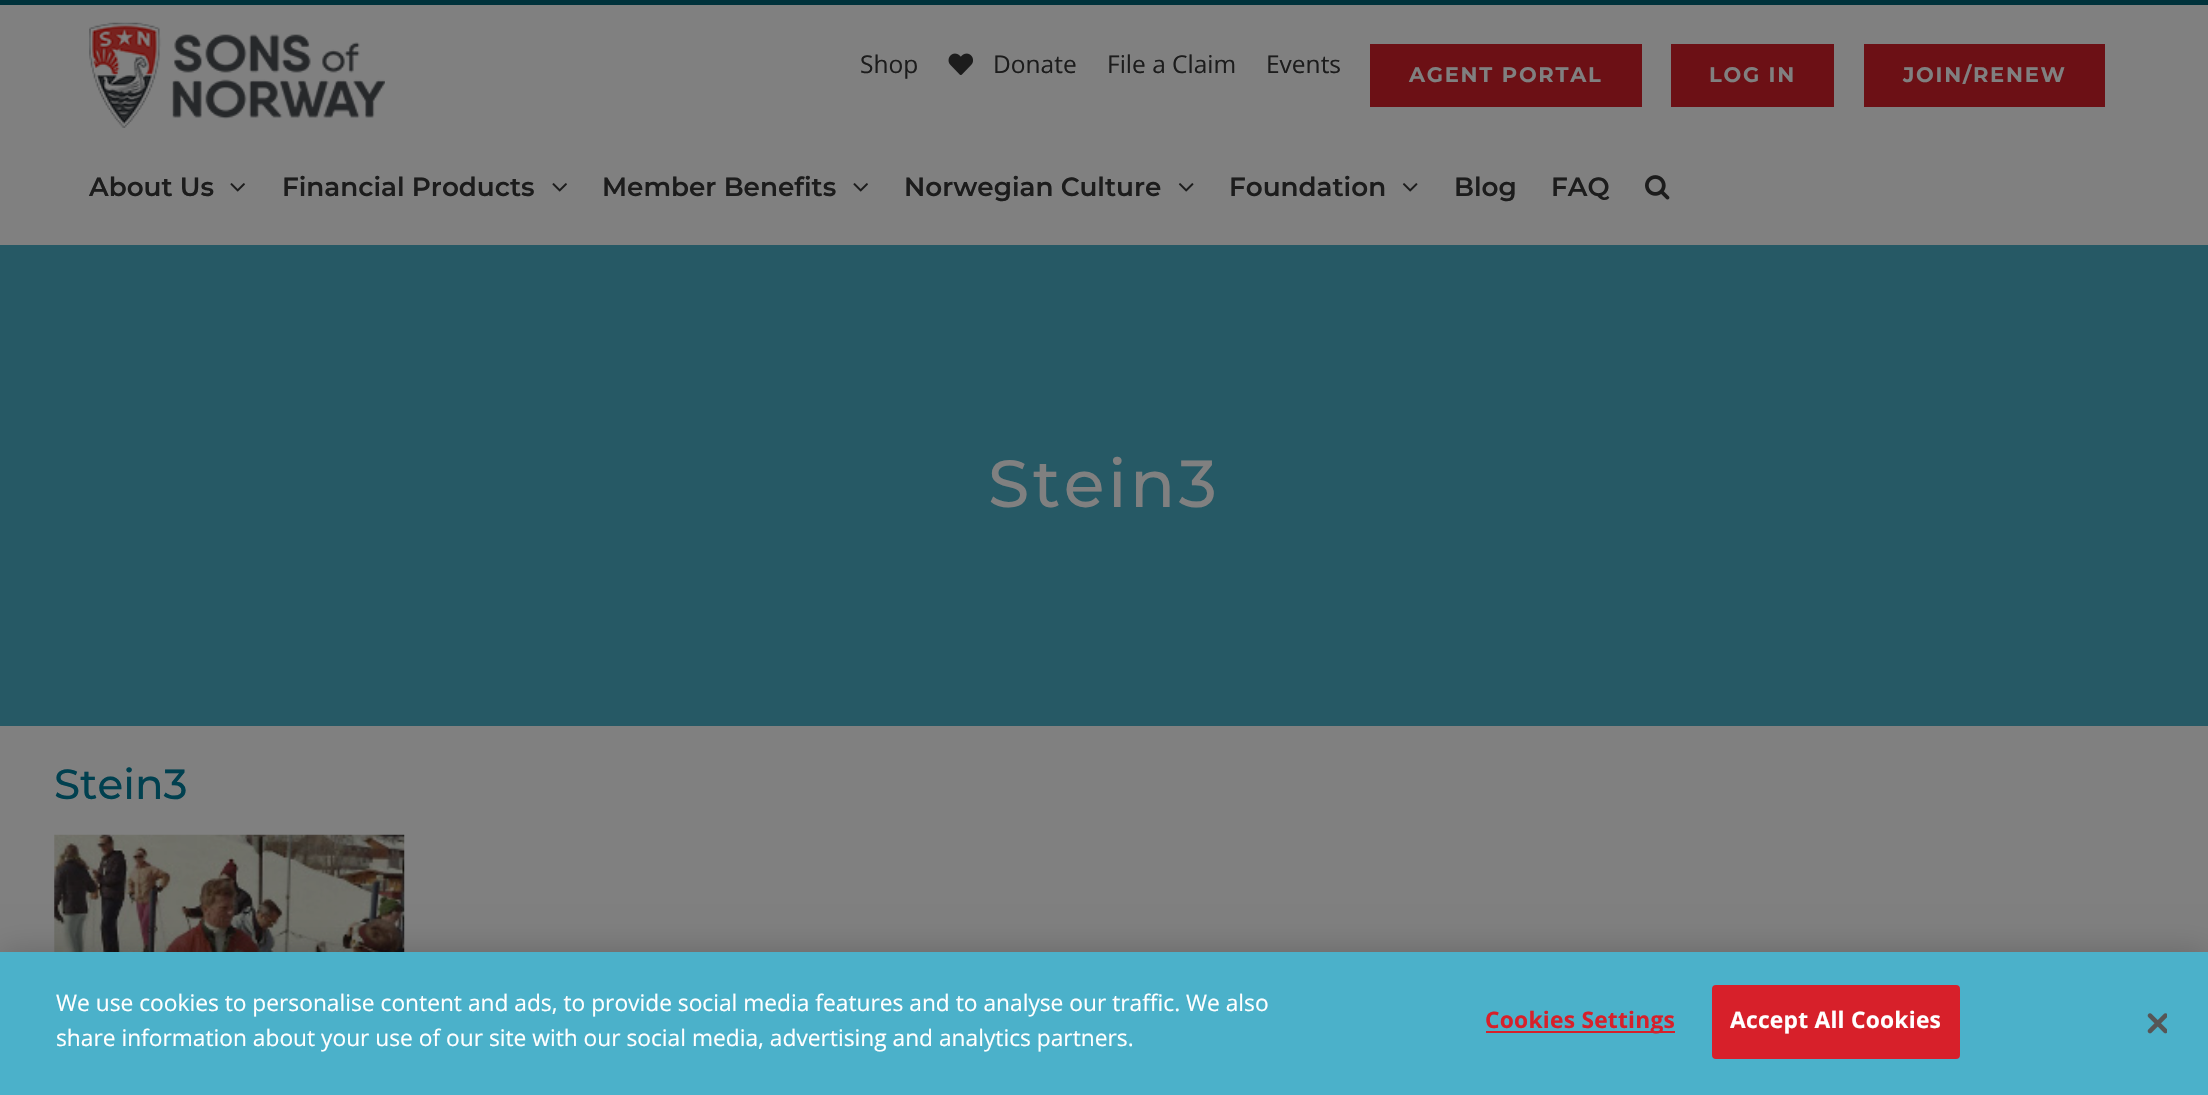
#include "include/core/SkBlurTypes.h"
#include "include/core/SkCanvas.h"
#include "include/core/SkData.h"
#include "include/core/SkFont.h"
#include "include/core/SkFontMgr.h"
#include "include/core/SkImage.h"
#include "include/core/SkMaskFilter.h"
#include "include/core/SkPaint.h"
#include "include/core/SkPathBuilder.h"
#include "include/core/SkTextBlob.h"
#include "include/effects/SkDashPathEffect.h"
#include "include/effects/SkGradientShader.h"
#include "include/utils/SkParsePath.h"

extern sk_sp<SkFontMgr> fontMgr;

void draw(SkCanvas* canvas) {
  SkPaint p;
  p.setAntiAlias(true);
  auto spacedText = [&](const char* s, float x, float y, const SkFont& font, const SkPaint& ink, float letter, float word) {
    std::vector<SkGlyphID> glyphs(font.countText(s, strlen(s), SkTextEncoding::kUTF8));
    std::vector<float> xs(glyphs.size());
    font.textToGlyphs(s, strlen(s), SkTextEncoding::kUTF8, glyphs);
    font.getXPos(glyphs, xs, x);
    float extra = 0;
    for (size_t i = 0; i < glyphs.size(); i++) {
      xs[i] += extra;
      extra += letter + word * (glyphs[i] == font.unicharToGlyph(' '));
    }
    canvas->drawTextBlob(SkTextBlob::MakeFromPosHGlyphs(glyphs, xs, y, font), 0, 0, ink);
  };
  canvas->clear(SkColorSetRGB(128, 128, 128));
  p.setColor(SkColorSetRGB(0, 50, 59));
  canvas->drawRect(SkRect::MakeLTRB(0, 0, 2208, 5), p);
  canvas->drawImageRect(SkImages::DeferredFromEncodedData(SkData::MakeFromFileName("images/1.png")), SkRect::MakeLTRB(89, 22, 385, 128), SkSamplingOptions());
  canvas->drawImageRect(SkImages::DeferredFromEncodedData(SkData::MakeFromFileName("images/2.png")), SkRect::MakeLTRB(948, 53, 973, 75), SkSamplingOptions());
  p.setColor(SkColorSetRGB(108, 16, 21));
  canvas->drawRect(SkRect::MakeLTRB(1370, 44, 1642, 107), p);
  canvas->drawRect(SkRect::MakeLTRB(1671, 44, 1834, 107), p);
  canvas->drawRect(SkRect::MakeLTRB(1864, 44, 2105, 107), p);
  canvas->drawImageRect(SkImages::DeferredFromEncodedData(SkData::MakeFromFileName("images/3.png")), SkRect::MakeLTRB(230, 183, 245, 192), SkSamplingOptions());
  canvas->drawImageRect(SkImages::DeferredFromEncodedData(SkData::MakeFromFileName("images/3.png")), SkRect::MakeLTRB(552, 183, 567, 192), SkSamplingOptions());
  canvas->drawImageRect(SkImages::DeferredFromEncodedData(SkData::MakeFromFileName("images/3.png")), SkRect::MakeLTRB(853, 183, 868, 192), SkSamplingOptions());
  canvas->drawImageRect(SkImages::DeferredFromEncodedData(SkData::MakeFromFileName("images/4.png")), SkRect::MakeLTRB(1178, 183, 1194, 192), SkSamplingOptions());
  canvas->drawImageRect(SkImages::DeferredFromEncodedData(SkData::MakeFromFileName("images/4.png")), SkRect::MakeLTRB(1402, 183, 1418, 192), SkSamplingOptions());
  canvas->drawImageRect(SkImages::DeferredFromEncodedData(SkData::MakeFromFileName("images/5.png")), SkRect::MakeLTRB(1645, 175, 1670, 200), SkSamplingOptions());
  p.setColor(SkColorSetRGB(38, 89, 101));
  canvas->drawRect(SkRect::MakeLTRB(0, 245, 2208, 726), p);
  canvas->drawImageRect(SkImages::DeferredFromEncodedData(SkData::MakeFromFileName("images/6.png")), SkRect::MakeLTRB(54, 834, 405, 952), SkSamplingOptions());
  p.setColor(SkColorSetARGB(51, 0, 0, 0));
  p.setMaskFilter(SkMaskFilter::MakeBlur(kNormal_SkBlurStyle, 16));
  canvas->drawRect(SkRect::MakeLTRB(0, 952, 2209, 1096), p);
  p.setMaskFilter(nullptr);
  p.setColor(SkColorSetRGB(75, 177, 202));
  canvas->drawRect(SkRect::MakeLTRB(0, 952, 2208, 1095), p);
  p.setColor(SkColorSetRGB(215, 32, 42));
  canvas->drawRect(SkRect::MakeLTRB(1486, 1031, 1675, 1033), p);
  canvas->drawRoundRect(SkRect::MakeLTRB(1713, 986, 1959, 1058), 3, 3, p);
  p.setStyle(SkPaint::kStroke_Style);
  p.setStrokeWidth(2);
  canvas->drawRoundRect(SkRect::MakeLTRB(1713, 986, 1959, 1058), 3, 3, p);
  canvas->drawImageRect(SkImages::DeferredFromEncodedData(SkData::MakeFromFileName("images/7.png")), SkRect::MakeLTRB(2147, 1013, 2167, 1034), SkSamplingOptions());
  SkFont font1(fontMgr->matchFamilyStyle("Open Sans", SkFontStyle::Normal()), 24.5f);
  font1.setSubpixel(true);
  p.setStyle(SkPaint::kFill_Style);
  p.setColor(SkColorSetRGB(28, 28, 28));
  canvas->drawString("Shop", 860, 73, font1, p);
  canvas->drawString("Donate", 993, 73, font1, p);
  canvas->drawString("File a Claim", 1107, 73, font1, p);
  canvas->drawString("Events", 1266, 73, font1, p);
  SkFont font2(fontMgr->matchFamilyStyle("Montserrat", SkFontStyle::Bold()), 21);
  font2.setSubpixel(true);
  p.setColor(SkColorSetRGB(128, 128, 128));
  spacedText("AGENT PORTAL", 1409, 82, font2, p, 1.75f, 0);
  spacedText("LOG IN", 1709, 82, font2, p, 1.75f, 0);
  spacedText("JOIN/RENEW", 1903, 82, font2, p, 1.75f, 0);
  SkFont font3(fontMgr->matchFamilyStyle("Montserrat", SkFontStyle(600, SkFontStyle::kNormal_Width, SkFontStyle::kUpright_Slant)), 26.25f);
  font3.setSubpixel(true);
  p.setColor(SkColorSetRGB(28, 28, 28));
  canvas->drawString("About Us", 89, 196, font3, p);
  canvas->drawString("Financial Products", 282, 196, font3, p);
  canvas->drawString("Member Benefits", 602, 196, font3, p);
  canvas->drawString("Norwegian Culture", 904, 196, font3, p);
  canvas->drawString("Foundation", 1229, 196, font3, p);
  canvas->drawString("Blog", 1454, 196, font3, p);
  canvas->drawString("FAQ", 1551, 196, font3, p);
  SkFont font4(fontMgr->matchFamilyStyle("Montserrat", SkFontStyle(500, SkFontStyle::kNormal_Width, SkFontStyle::kUpright_Slant)), 66.5f);
  font4.setSubpixel(true);
  p.setColor(SkColorSetRGB(128, 128, 128));
  spacedText("Stein3", 988, 507, font4, p, 3.5f, 0);
  SkFont font5(fontMgr->matchFamilyStyle("Montserrat", SkFontStyle(500, SkFontStyle::kNormal_Width, SkFontStyle::kUpright_Slant)), 42);
  font5.setSubpixel(true);
  p.setColor(SkColorSetRGB(0, 64, 79));
  canvas->drawString("Stein3", 54, 799, font5, p);
  SkFont font6(fontMgr->matchFamilyStyle("Open Sans", SkFontStyle::Normal()), 22.75f);
  font6.setSubpixel(true);
  p.setColor(SK_ColorWHITE);
  canvas->drawString("We use cookies to personalise content and ads, to provide social media features and to analyse our traffic. We also", 56, 1011, font6, p);
  canvas->drawString("share information about your use of our site with our social media, advertising and analytics partners.", 56, 1046, font6, p);
  SkFont font7(fontMgr->matchFamilyStyle("Open Sans", SkFontStyle::Bold()), 22.75f);
  font7.setSubpixel(true);
  p.setColor(SkColorSetRGB(215, 32, 42));
  spacedText("Cookies Settings", 1485, 1028, font7, p, 0.25f, 0);
  p.setColor(SK_ColorWHITE);
  spacedText("Accept All Cookies", 1730, 1028, font7, p, 0.25f, 0);
}
